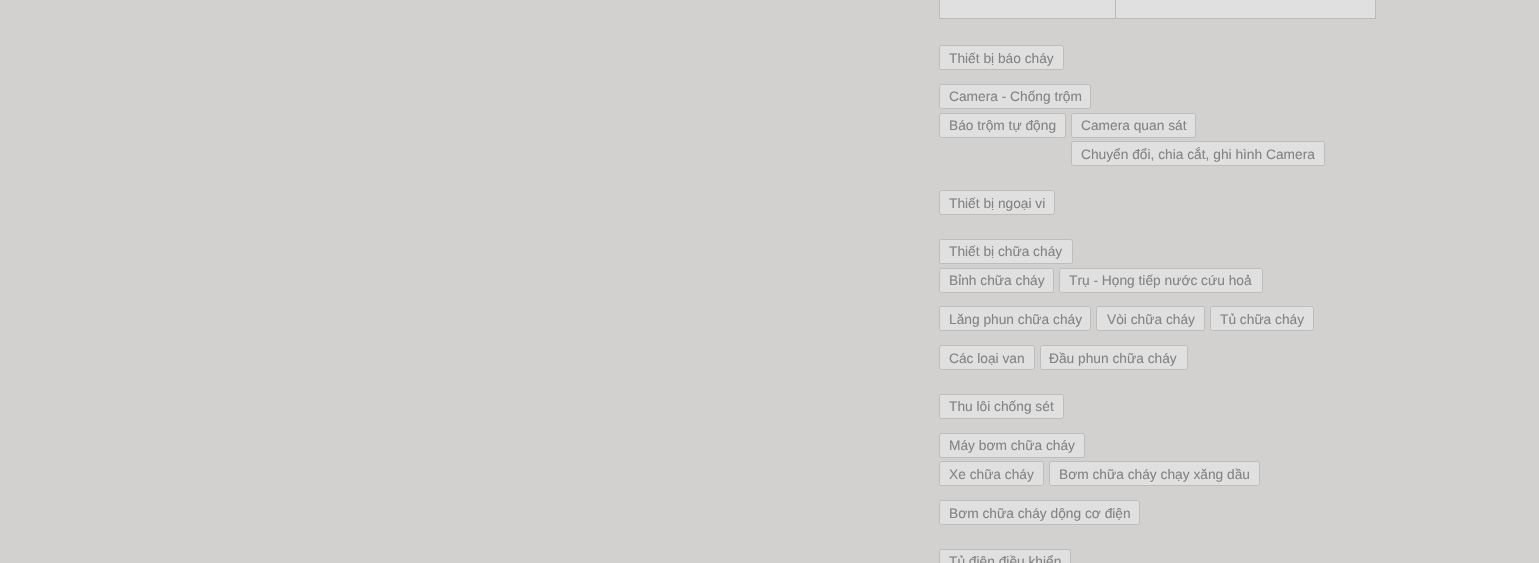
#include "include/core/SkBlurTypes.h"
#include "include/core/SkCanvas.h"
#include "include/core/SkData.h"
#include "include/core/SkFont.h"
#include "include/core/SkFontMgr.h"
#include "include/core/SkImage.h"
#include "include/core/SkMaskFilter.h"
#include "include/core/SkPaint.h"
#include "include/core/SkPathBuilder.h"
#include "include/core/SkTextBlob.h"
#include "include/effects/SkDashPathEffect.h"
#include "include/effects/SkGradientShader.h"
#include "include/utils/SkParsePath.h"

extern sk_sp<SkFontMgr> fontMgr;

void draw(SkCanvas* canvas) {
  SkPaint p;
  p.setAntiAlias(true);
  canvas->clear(SK_ColorWHITE);
  {
    const SkColor colors[] = {SkColorSetRGB(227, 227, 226), SkColorSetRGB(210, 209, 208)};
    const float stops[] = {0, 0.18f};
    const SkPoint ends[] = {{770, -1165}, {770, 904}};
    p.setShader(SkGradientShader::MakeLinear(ends, colors, stops, 2, SkTileMode::kClamp));
    p.setAlpha(255);
  }
  canvas->drawRect(SkRect::MakeLTRB(0, 0, 1539, 563), p);
  p.setShader(nullptr);
  p.setColor(SkColorSetRGB(224, 224, 224));
  canvas->drawRect(SkRect::MakeLTRB(939.5f, -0.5f, 1375.5f, 18.5f), p);
  p.setStyle(SkPaint::kStroke_Style);
  p.setStrokeWidth(1);
  p.setColor(SkColorSetRGB(187, 187, 187));
  canvas->drawRect(SkRect::MakeLTRB(939.5f, -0.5f, 1375.5f, 18.5f), p);
  p.setStyle(SkPaint::kFill_Style);
  canvas->drawRect(SkRect::MakeLTRB(1115, 0, 1116, 18), p);
  p.setColor(SkColorSetRGB(224, 224, 224));
  canvas->drawRoundRect(SkRect::MakeLTRB(939.5f, 45.5f, 1063.5f, 69.5f), 2, 2, p);
  p.setStyle(SkPaint::kStroke_Style);
  p.setColor(SkColorSetRGB(189, 189, 189));
  canvas->drawRoundRect(SkRect::MakeLTRB(939.5f, 45.5f, 1063.5f, 69.5f), 2, 2, p);
  p.setStyle(SkPaint::kFill_Style);
  p.setColor(SkColorSetRGB(224, 224, 224));
  canvas->drawRoundRect(SkRect::MakeLTRB(939.5f, 84.5f, 1090.5f, 108.5f), 2, 2, p);
  p.setStyle(SkPaint::kStroke_Style);
  p.setColor(SkColorSetRGB(189, 189, 189));
  canvas->drawRoundRect(SkRect::MakeLTRB(939.5f, 84.5f, 1090.5f, 108.5f), 2, 2, p);
  p.setStyle(SkPaint::kFill_Style);
  p.setColor(SkColorSetRGB(224, 224, 224));
  canvas->drawRoundRect(SkRect::MakeLTRB(939.5f, 113.5f, 1065.5f, 137.5f), 2, 2, p);
  p.setStyle(SkPaint::kStroke_Style);
  p.setColor(SkColorSetRGB(189, 189, 189));
  canvas->drawRoundRect(SkRect::MakeLTRB(939.5f, 113.5f, 1065.5f, 137.5f), 2, 2, p);
  p.setStyle(SkPaint::kFill_Style);
  p.setColor(SkColorSetRGB(224, 224, 224));
  canvas->drawRoundRect(SkRect::MakeLTRB(1071.5f, 113.5f, 1195.5f, 137.5f), 2, 2, p);
  p.setStyle(SkPaint::kStroke_Style);
  p.setColor(SkColorSetRGB(189, 189, 189));
  canvas->drawRoundRect(SkRect::MakeLTRB(1071.5f, 113.5f, 1195.5f, 137.5f), 2, 2, p);
  p.setStyle(SkPaint::kFill_Style);
  p.setColor(SkColorSetRGB(224, 224, 224));
  canvas->drawRoundRect(SkRect::MakeLTRB(1071.5f, 141.5f, 1324.5f, 165.5f), 2, 2, p);
  p.setStyle(SkPaint::kStroke_Style);
  p.setColor(SkColorSetRGB(189, 189, 189));
  canvas->drawRoundRect(SkRect::MakeLTRB(1071.5f, 141.5f, 1324.5f, 165.5f), 2, 2, p);
  p.setStyle(SkPaint::kFill_Style);
  p.setColor(SkColorSetRGB(224, 224, 224));
  canvas->drawRoundRect(SkRect::MakeLTRB(939.5f, 190.5f, 1054.5f, 214.5f), 2, 2, p);
  p.setStyle(SkPaint::kStroke_Style);
  p.setColor(SkColorSetRGB(189, 189, 189));
  canvas->drawRoundRect(SkRect::MakeLTRB(939.5f, 190.5f, 1054.5f, 214.5f), 2, 2, p);
  p.setStyle(SkPaint::kFill_Style);
  p.setColor(SkColorSetRGB(224, 224, 224));
  canvas->drawRoundRect(SkRect::MakeLTRB(939.5f, 239.5f, 1072.5f, 263.5f), 2, 2, p);
  p.setStyle(SkPaint::kStroke_Style);
  p.setColor(SkColorSetRGB(189, 189, 189));
  canvas->drawRoundRect(SkRect::MakeLTRB(939.5f, 239.5f, 1072.5f, 263.5f), 2, 2, p);
  p.setStyle(SkPaint::kFill_Style);
  p.setColor(SkColorSetRGB(224, 224, 224));
  canvas->drawRoundRect(SkRect::MakeLTRB(939.5f, 268.5f, 1053.5f, 292.5f), 2, 2, p);
  p.setStyle(SkPaint::kStroke_Style);
  p.setColor(SkColorSetRGB(189, 189, 189));
  canvas->drawRoundRect(SkRect::MakeLTRB(939.5f, 268.5f, 1053.5f, 292.5f), 2, 2, p);
  p.setStyle(SkPaint::kFill_Style);
  p.setColor(SkColorSetRGB(224, 224, 224));
  canvas->drawRoundRect(SkRect::MakeLTRB(1059.5f, 268.5f, 1262.5f, 292.5f), 2, 2, p);
  p.setStyle(SkPaint::kStroke_Style);
  p.setColor(SkColorSetRGB(189, 189, 189));
  canvas->drawRoundRect(SkRect::MakeLTRB(1059.5f, 268.5f, 1262.5f, 292.5f), 2, 2, p);
  p.setStyle(SkPaint::kFill_Style);
  p.setColor(SkColorSetRGB(224, 224, 224));
  canvas->drawRoundRect(SkRect::MakeLTRB(939.5f, 306.5f, 1090.5f, 330.5f), 2, 2, p);
  p.setStyle(SkPaint::kStroke_Style);
  p.setColor(SkColorSetRGB(189, 189, 189));
  canvas->drawRoundRect(SkRect::MakeLTRB(939.5f, 306.5f, 1090.5f, 330.5f), 2, 2, p);
  p.setStyle(SkPaint::kFill_Style);
  p.setColor(SkColorSetRGB(224, 224, 224));
  canvas->drawRoundRect(SkRect::MakeLTRB(1096.5f, 306.5f, 1204.5f, 330.5f), 2, 2, p);
  p.setStyle(SkPaint::kStroke_Style);
  p.setColor(SkColorSetRGB(189, 189, 189));
  canvas->drawRoundRect(SkRect::MakeLTRB(1096.5f, 306.5f, 1204.5f, 330.5f), 2, 2, p);
  p.setStyle(SkPaint::kFill_Style);
  p.setColor(SkColorSetRGB(224, 224, 224));
  canvas->drawRoundRect(SkRect::MakeLTRB(1210.5f, 306.5f, 1313.5f, 330.5f), 2, 2, p);
  p.setStyle(SkPaint::kStroke_Style);
  p.setColor(SkColorSetRGB(189, 189, 189));
  canvas->drawRoundRect(SkRect::MakeLTRB(1210.5f, 306.5f, 1313.5f, 330.5f), 2, 2, p);
  p.setStyle(SkPaint::kFill_Style);
  p.setColor(SkColorSetRGB(224, 224, 224));
  canvas->drawRoundRect(SkRect::MakeLTRB(939.5f, 345.5f, 1034.5f, 369.5f), 2, 2, p);
  p.setStyle(SkPaint::kStroke_Style);
  p.setColor(SkColorSetRGB(189, 189, 189));
  canvas->drawRoundRect(SkRect::MakeLTRB(939.5f, 345.5f, 1034.5f, 369.5f), 2, 2, p);
  p.setStyle(SkPaint::kFill_Style);
  p.setColor(SkColorSetRGB(224, 224, 224));
  canvas->drawRoundRect(SkRect::MakeLTRB(1040.5f, 345.5f, 1187.5f, 369.5f), 2, 2, p);
  p.setStyle(SkPaint::kStroke_Style);
  p.setColor(SkColorSetRGB(189, 189, 189));
  canvas->drawRoundRect(SkRect::MakeLTRB(1040.5f, 345.5f, 1187.5f, 369.5f), 2, 2, p);
  p.setStyle(SkPaint::kFill_Style);
  p.setColor(SkColorSetRGB(224, 224, 224));
  canvas->drawRoundRect(SkRect::MakeLTRB(939.5f, 394.5f, 1063.5f, 418.5f), 2, 2, p);
  p.setStyle(SkPaint::kStroke_Style);
  p.setColor(SkColorSetRGB(189, 189, 189));
  canvas->drawRoundRect(SkRect::MakeLTRB(939.5f, 394.5f, 1063.5f, 418.5f), 2, 2, p);
  p.setStyle(SkPaint::kFill_Style);
  p.setColor(SkColorSetRGB(224, 224, 224));
  canvas->drawRoundRect(SkRect::MakeLTRB(939.5f, 433.5f, 1084.5f, 457.5f), 2, 2, p);
  p.setStyle(SkPaint::kStroke_Style);
  p.setColor(SkColorSetRGB(189, 189, 189));
  canvas->drawRoundRect(SkRect::MakeLTRB(939.5f, 433.5f, 1084.5f, 457.5f), 2, 2, p);
  p.setStyle(SkPaint::kFill_Style);
  p.setColor(SkColorSetRGB(224, 224, 224));
  canvas->drawRoundRect(SkRect::MakeLTRB(939.5f, 461.5f, 1043.5f, 485.5f), 2, 2, p);
  p.setStyle(SkPaint::kStroke_Style);
  p.setColor(SkColorSetRGB(189, 189, 189));
  canvas->drawRoundRect(SkRect::MakeLTRB(939.5f, 461.5f, 1043.5f, 485.5f), 2, 2, p);
  p.setStyle(SkPaint::kFill_Style);
  p.setColor(SkColorSetRGB(224, 224, 224));
  canvas->drawRoundRect(SkRect::MakeLTRB(1049.5f, 461.5f, 1259.5f, 485.5f), 2, 2, p);
  p.setStyle(SkPaint::kStroke_Style);
  p.setColor(SkColorSetRGB(189, 189, 189));
  canvas->drawRoundRect(SkRect::MakeLTRB(1049.5f, 461.5f, 1259.5f, 485.5f), 2, 2, p);
  p.setStyle(SkPaint::kFill_Style);
  p.setColor(SkColorSetRGB(224, 224, 224));
  canvas->drawRoundRect(SkRect::MakeLTRB(939.5f, 500.5f, 1139.5f, 524.5f), 2, 2, p);
  p.setStyle(SkPaint::kStroke_Style);
  p.setColor(SkColorSetRGB(189, 189, 189));
  canvas->drawRoundRect(SkRect::MakeLTRB(939.5f, 500.5f, 1139.5f, 524.5f), 2, 2, p);
  p.setStyle(SkPaint::kFill_Style);
  p.setColor(SkColorSetRGB(224, 224, 224));
  canvas->drawRoundRect(SkRect::MakeLTRB(939.5f, 549.5f, 1070.5f, 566.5f), 2, 2, p);
  p.setStyle(SkPaint::kStroke_Style);
  p.setColor(SkColorSetRGB(189, 189, 189));
  canvas->drawRoundRect(SkRect::MakeLTRB(939.5f, 549.5f, 1070.5f, 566.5f), 2, 2, p);
  SkFont font1(fontMgr->matchFamilyStyle("Liberation Sans", SkFontStyle::Normal()), 13.75f);
  font1.setSubpixel(true);
  p.setStyle(SkPaint::kFill_Style);
  p.setColor(SkColorSetRGB(131, 131, 131));
  canvas->drawString("Thiết bị báo cháy", 949, 63, font1, p);
  canvas->drawString("Camera - Chống trộm", 949, 101, font1, p);
  canvas->drawString("Báo trộm tự động", 949, 130, font1, p);
  canvas->drawString("Camera quan sát", 1081, 130, font1, p);
  canvas->drawString("Chuyển đổi, chia cắt, ghi hình Camera", 1081, 159, font1, p);
  canvas->drawString("Thiết bị ngoại vi", 949, 208, font1, p);
  canvas->drawString("Thiết bị chữa cháy", 949, 256, font1, p);
  canvas->drawString("Bỉnh chữa cháy", 949, 285, font1, p);
  canvas->drawString("Trụ - Họng tiếp nước cứu hoả", 1069, 285, font1, p);
  canvas->drawString("Lăng phun chữa cháy", 949, 324, font1, p);
  canvas->drawString("Vòi chữa cháy", 1107, 324, font1, p);
  canvas->drawString("Tủ chữa cháy", 1220, 324, font1, p);
  canvas->drawString("Các loại van", 949, 363, font1, p);
  canvas->drawString("Đầu phun chữa cháy", 1049, 363, font1, p);
  canvas->drawString("Thu lôi chống sét", 949, 411, font1, p);
  canvas->drawString("Máy bơm chữa cháy", 949, 450, font1, p);
  canvas->drawString("Xe chữa cháy", 949, 479, font1, p);
  canvas->drawString("Bơm chữa cháy chạy xăng dầu", 1059, 479, font1, p);
  canvas->drawString("Bơm chữa cháy dộng cơ điện", 949, 518, font1, p);
  canvas->drawString("Tủ điện điều khiển", 949, 566, font1, p);
}
